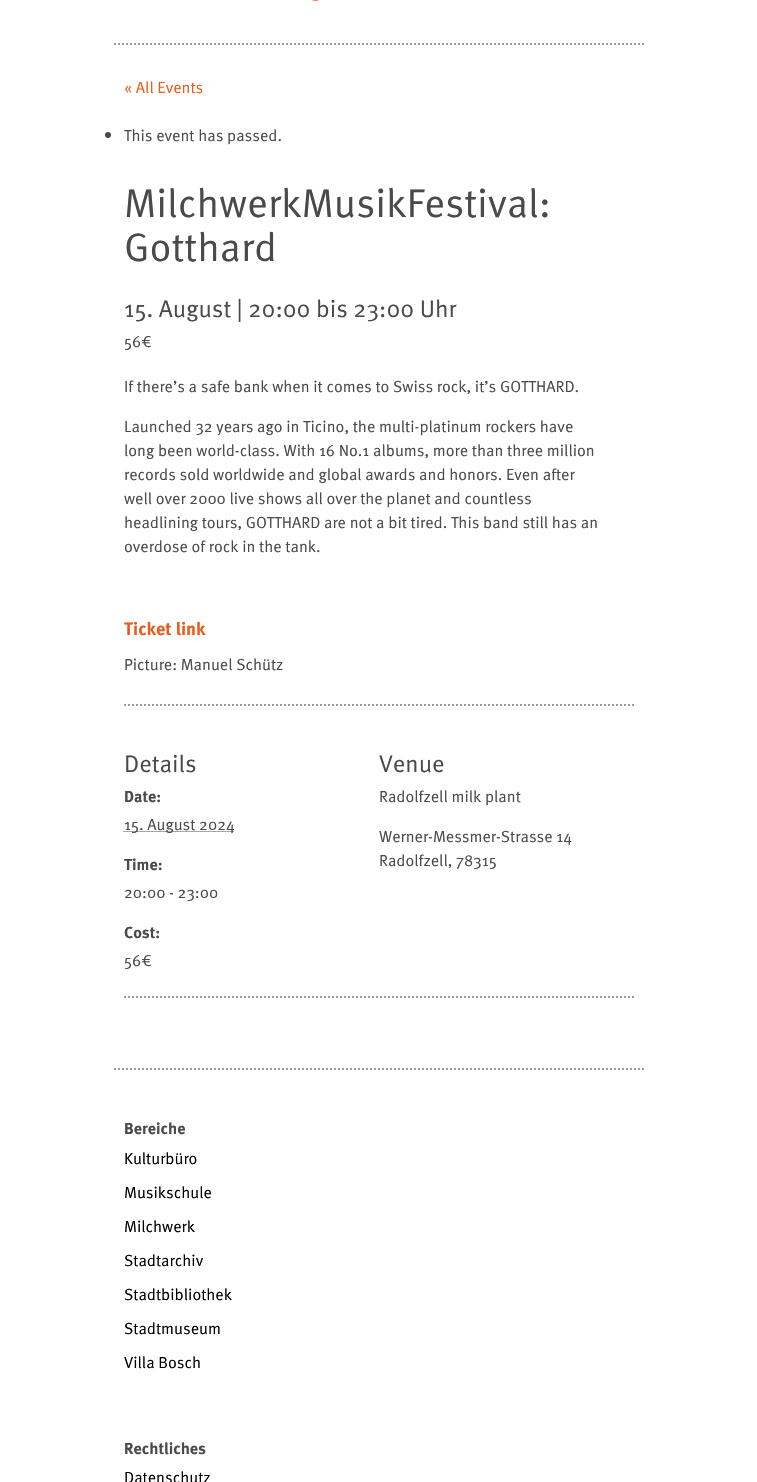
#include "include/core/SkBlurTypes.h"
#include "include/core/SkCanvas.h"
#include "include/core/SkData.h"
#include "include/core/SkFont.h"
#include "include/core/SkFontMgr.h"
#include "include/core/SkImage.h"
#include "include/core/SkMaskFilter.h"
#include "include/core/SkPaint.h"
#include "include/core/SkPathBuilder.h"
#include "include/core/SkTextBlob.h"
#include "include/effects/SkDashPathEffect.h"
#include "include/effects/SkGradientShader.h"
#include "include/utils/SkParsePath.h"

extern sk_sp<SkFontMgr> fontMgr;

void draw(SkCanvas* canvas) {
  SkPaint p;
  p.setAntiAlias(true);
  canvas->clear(SK_ColorWHITE);
  canvas->drawImageRect(SkImages::DeferredFromEncodedData(SkData::MakeFromFileName("images/1.png")), SkRect::MakeLTRB(311, 0, 320, 1), SkSamplingOptions());
  p.setStyle(SkPaint::kStroke_Style);
  p.setStrokeWidth(2);
  p.setColor(SkColorSetRGB(155, 155, 155));
  p.setPathEffect(SkDashPathEffect::Make({{2, 2}}, 0));
  canvas->drawPath(SkPathBuilder().moveTo(114, 44).lineTo(644, 44).detach(), p);
  p.setPathEffect(nullptr);
  p.setStyle(SkPaint::kFill_Style);
  p.setColor(SkColorSetRGB(74, 74, 74));
  canvas->drawCircle(108, 135, 3, p);
  p.setStyle(SkPaint::kStroke_Style);
  p.setColor(SkColorSetRGB(155, 155, 155));
  p.setPathEffect(SkDashPathEffect::Make({{2, 2}}, 0));
  canvas->drawPath(SkPathBuilder().moveTo(124, 705).lineTo(634, 705).detach(), p);
  p.setPathEffect(nullptr);
  p.setStrokeWidth(1);
  p.setColor(SkColorSetRGB(74, 74, 74));
  p.setPathEffect(SkDashPathEffect::Make({{1, 1}}, 0));
  canvas->drawPath(SkPathBuilder().moveTo(123.5f, 831.5f).lineTo(234, 831.5f).detach(), p);
  p.setPathEffect(nullptr);
  p.setStrokeWidth(2);
  p.setColor(SkColorSetRGB(155, 155, 155));
  p.setPathEffect(SkDashPathEffect::Make({{2, 2}}, 0));
  canvas->drawPath(SkPathBuilder().moveTo(124, 997).lineTo(634, 997).detach(), p);
  p.setPathEffect(nullptr);
  p.setPathEffect(SkDashPathEffect::Make({{2, 2}}, 0));
  canvas->drawPath(SkPathBuilder().moveTo(114, 1069).lineTo(644, 1069).detach(), p);
  p.setPathEffect(nullptr);
  SkFont font1(fontMgr->matchFamilyStyle("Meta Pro", SkFontStyle::Normal()), 16);
  font1.setSubpixel(true);
  p.setStyle(SkPaint::kFill_Style);
  p.setColor(SkColorSetRGB(235, 91, 27));
  canvas->drawString("« All Events", 124, 93, font1, p);
  p.setColor(SkColorSetRGB(74, 74, 74));
  canvas->drawString("This event has passed.", 124, 141, font1, p);
  SkFont font2(fontMgr->matchFamilyStyle("Meta Pro", SkFontStyle::Normal()), 40);
  font2.setSubpixel(true);
  canvas->drawString("MilchwerkMusikFestival:", 124, 217, font2, p);
  canvas->drawString("Gotthard", 124, 261, font2, p);
  SkFont font3(fontMgr->matchFamilyStyle("Meta Pro", SkFontStyle::Normal()), 24);
  font3.setSubpixel(true);
  canvas->drawString("15. August | 20:00 bis 23:00 Uhr", 124, 317, font3, p);
  canvas->drawString("56€", 124, 347, font1, p);
  canvas->drawString("If there’s a safe bank when it comes to Swiss rock, it’s GOTTHARD.", 124, 392, font1, p);
  canvas->drawString("Launched 32 years ago in Ticino, the multi-platinum rockers have", 124, 432, font1, p);
  canvas->drawString("long been world-class. With 16 No.1 albums, more than three million", 124, 456, font1, p);
  canvas->drawString("records sold worldwide and global awards and honors. Even after", 124, 480, font1, p);
  canvas->drawString("well over 2000 live shows all over the planet and countless", 124, 504, font1, p);
  canvas->drawString("headlining tours, GOTTHARD are not a bit tired. This band still has an", 124, 528, font1, p);
  canvas->drawString("overdose of rock in the tank.", 124, 552, font1, p);
  canvas->save();
  canvas->clipRect(SkRect::MakeLTRB(124, 373, 634, 996));
  SkFont font4(fontMgr->matchFamilyStyle("Meta Pro", SkFontStyle::Bold()), 18);
  font4.setSubpixel(true);
  p.setColor(SkColorSetRGB(235, 91, 27));
  canvas->drawString("Ticket link", 124, 635, font4, p);
  canvas->restore();
  p.setColor(SkColorSetRGB(74, 74, 74));
  canvas->drawString("Picture: Manuel Schütz", 124, 670, font1, p);
  canvas->drawString("Details", 124, 772, font3, p);
  SkFont font5(fontMgr->matchFamilyStyle("Meta Pro", SkFontStyle::Bold()), 16);
  font5.setSubpixel(true);
  canvas->drawString("Date:", 124, 802, font5, p);
  canvas->drawString("15. August 2024", 124, 830, font1, p);
  canvas->drawString("Time:", 124, 870, font5, p);
  canvas->drawString("20:00 - 23:00", 124, 898, font1, p);
  canvas->drawString("Cost:", 124, 938, font5, p);
  canvas->drawString("56€", 124, 966, font1, p);
  canvas->drawString("Venue", 379, 772, font3, p);
  canvas->drawString("Radolfzell milk plant", 379, 802, font1, p);
  canvas->drawString("Werner-Messmer-Strasse 14", 379, 842, font1, p);
  canvas->drawString("Radolfzell, 78315", 379, 866, font1, p);
  canvas->drawString("Bereiche", 124, 1134, font5, p);
  p.setColor(SK_ColorBLACK);
  canvas->drawString("Kulturbüro", 124, 1164, font1, p);
  canvas->drawString("Musikschule", 124, 1198, font1, p);
  canvas->drawString("Milchwerk", 124, 1232, font1, p);
  canvas->drawString("Stadtarchiv", 124, 1266, font1, p);
  canvas->drawString("Stadtbibliothek", 124, 1300, font1, p);
  canvas->drawString("Stadtmuseum", 124, 1334, font1, p);
  canvas->drawString("Villa Bosch", 124, 1368, font1, p);
  p.setColor(SkColorSetRGB(74, 74, 74));
  canvas->drawString("Rechtliches", 124, 1454, font5, p);
  p.setColor(SK_ColorBLACK);
  canvas->drawString("Datenschutz", 124, 1483, font1, p);
}
